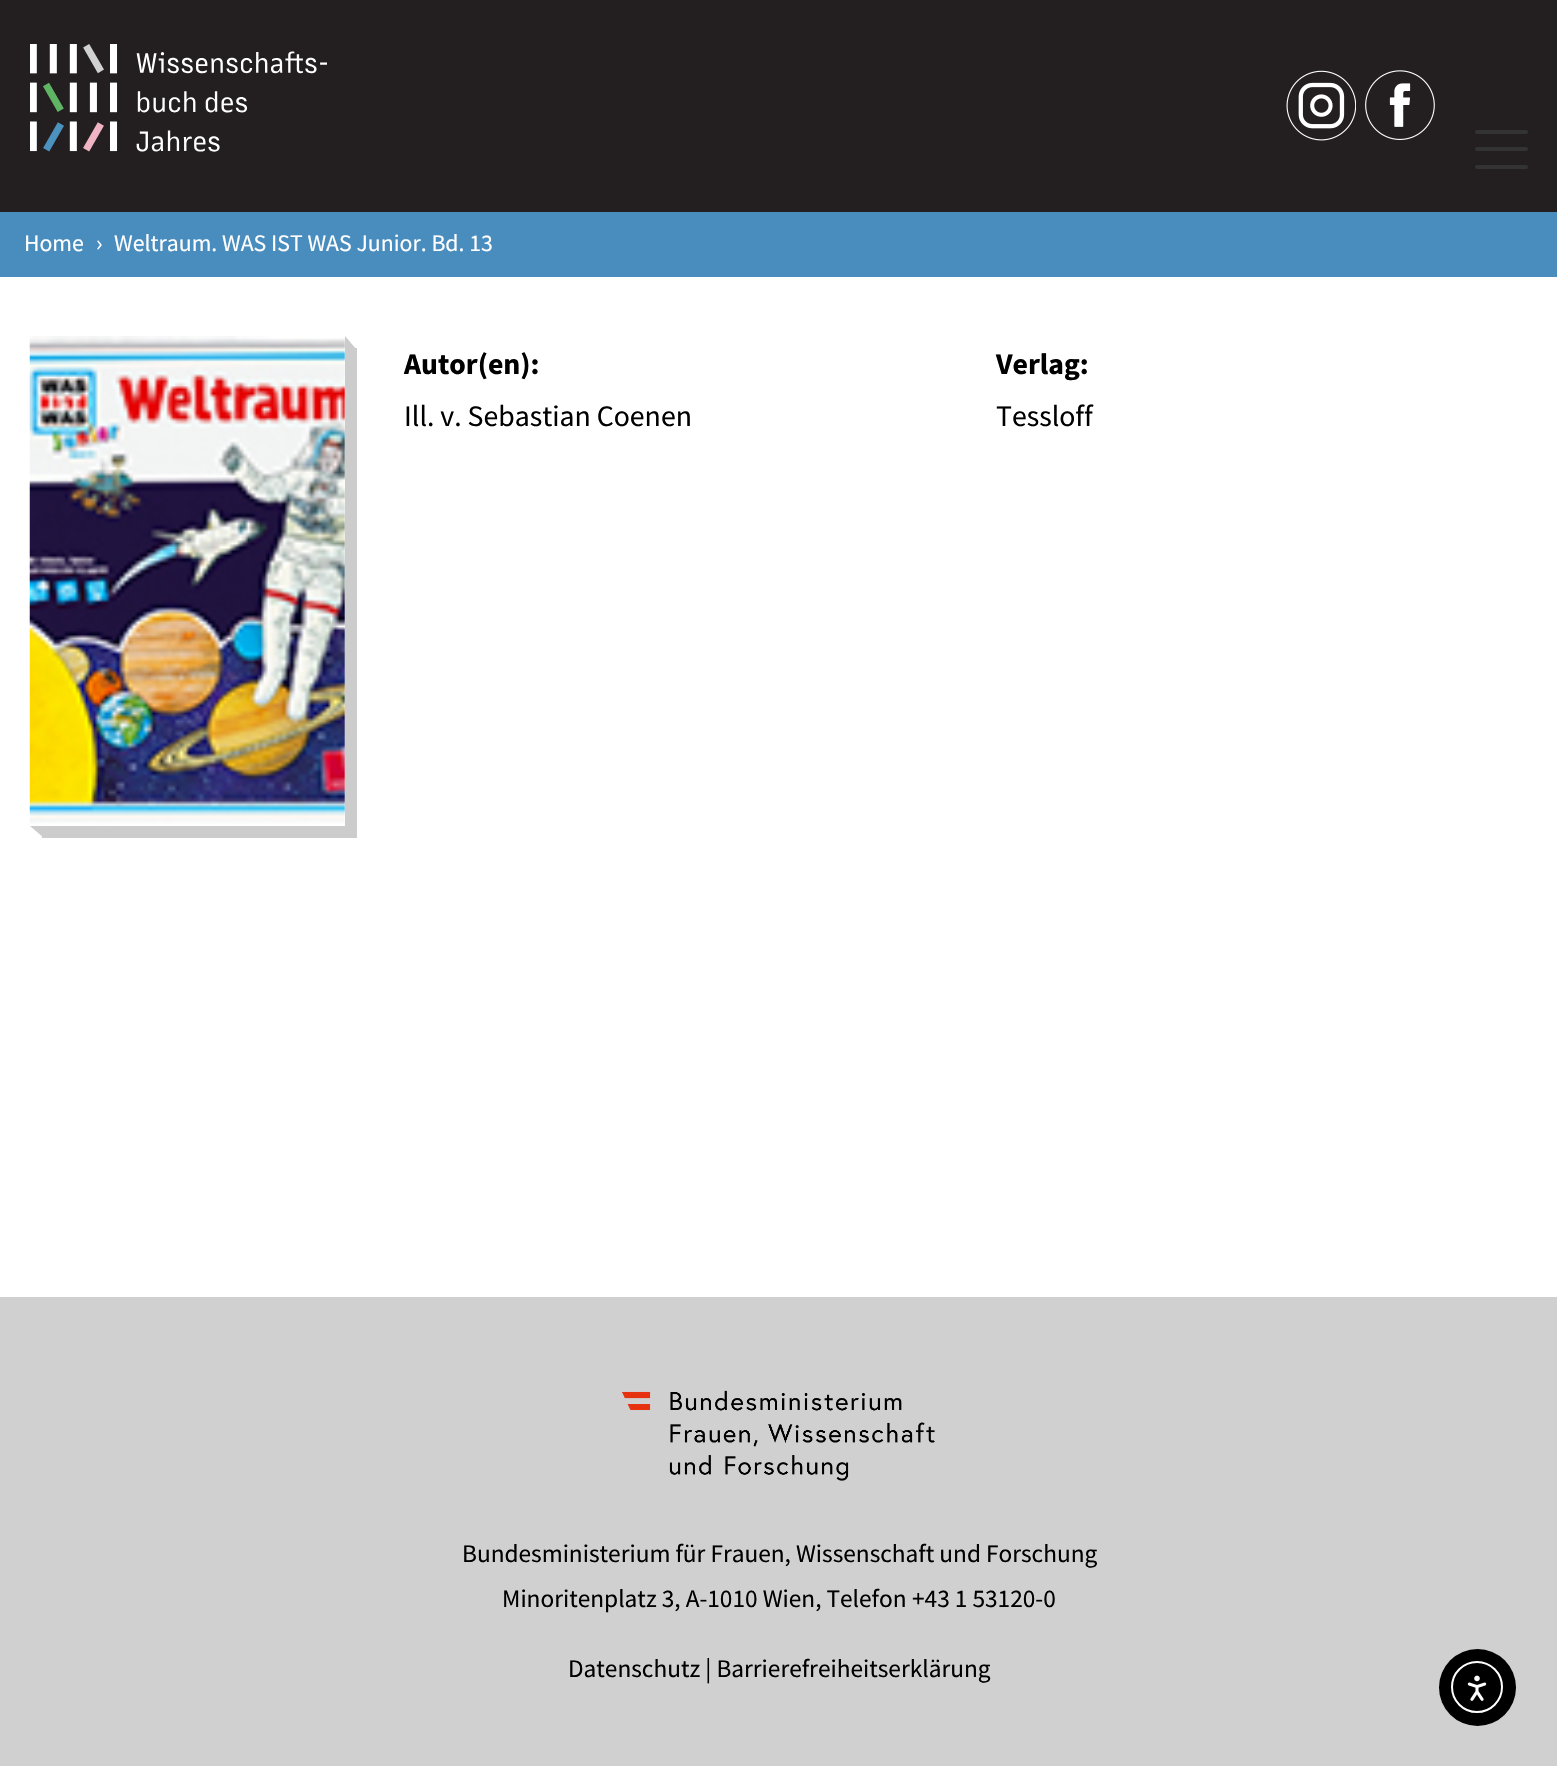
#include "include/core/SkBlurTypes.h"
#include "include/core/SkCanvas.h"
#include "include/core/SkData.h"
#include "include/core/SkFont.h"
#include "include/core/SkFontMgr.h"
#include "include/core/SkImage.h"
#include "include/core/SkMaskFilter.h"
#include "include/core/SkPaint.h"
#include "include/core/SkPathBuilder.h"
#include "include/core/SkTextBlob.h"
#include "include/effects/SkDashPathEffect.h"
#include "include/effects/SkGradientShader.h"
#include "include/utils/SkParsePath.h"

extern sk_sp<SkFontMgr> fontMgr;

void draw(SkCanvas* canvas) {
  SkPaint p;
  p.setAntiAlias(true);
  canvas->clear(SK_ColorWHITE);
  p.setColor(SkColorSetRGB(35, 31, 32));
  canvas->drawRect(SkRect::MakeLTRB(0, 0, 1557, 212), p);
  canvas->drawImageRect(SkImages::DeferredFromEncodedData(SkData::MakeFromFileName("images/1.png")), SkRect::MakeLTRB(30, 44, 327, 152), SkSamplingOptions());
  canvas->drawImageRect(SkImages::DeferredFromEncodedData(SkData::MakeFromFileName("images/2.png")), SkRect::MakeLTRB(1286, 70, 1356, 141), SkSamplingOptions());
  canvas->drawImageRect(SkImages::DeferredFromEncodedData(SkData::MakeFromFileName("images/3.png")), SkRect::MakeLTRB(1365, 70, 1435, 140), SkSamplingOptions());
  p.setColor(SkColorSetRGB(51, 51, 51));
  canvas->drawRoundRect(SkRect::MakeLTRB(1475, 147, 1528, 151), 2, 2, p);
  canvas->drawRoundRect(SkRect::MakeLTRB(1475, 130, 1528, 134), 2, 2, p);
  canvas->drawRoundRect(SkRect::MakeLTRB(1475, 165, 1528, 169), 2, 2, p);
  p.setColor(SkColorSetRGB(73, 140, 190));
  canvas->drawRect(SkRect::MakeLTRB(0, 212, 1557, 277), p);
  p.setColor(SkColorSetRGB(204, 204, 204));
  canvas->drawPath(SkPathBuilder().moveTo(42, 826).lineTo(42, 838).lineTo(357, 838).lineTo(357, 348).lineTo(345, 348).lineTo(345, 826).close().detach(), p);
  canvas->drawImageRect(SkImages::DeferredFromEncodedData(SkData::MakeFromFileName("images/4.png")), SkRect::MakeLTRB(29, 336, 345, 826), SkSamplingOptions());
  canvas->drawPath(SkPathBuilder().moveTo(345, 350).lineTo(345, 336).lineTo(357, 350).close().detach(), p);
  canvas->drawPath(SkPathBuilder().moveTo(44, 826).lineTo(44, 838).lineTo(30, 826).close().detach(), p);
  p.setColor(SkColorSetRGB(208, 208, 208));
  canvas->drawRect(SkRect::MakeLTRB(0, 1297, 1557, 1766), p);
  canvas->drawImageRect(SkImages::DeferredFromEncodedData(SkData::MakeFromFileName("images/5.png")), SkRect::MakeLTRB(622, 1390, 935, 1481), SkSamplingOptions());
  p.setColor(SK_ColorBLACK);
  canvas->drawCircle(1477.5f, 1687.5f, 38.5f, p);
  p.setStyle(SkPaint::kStroke_Style);
  p.setStrokeWidth(2);
  p.setColor(SK_ColorWHITE);
  canvas->drawCircle(1477, 1687, 25, p);
  canvas->drawImageRect(SkImages::DeferredFromEncodedData(SkData::MakeFromFileName("images/6.png")), SkRect::MakeLTRB(1467, 1675, 1487, 1701), SkSamplingOptions());
  SkFont font1(fontMgr->matchFamilyStyle("Source Sans Pro", SkFontStyle::Normal()), 23.75f);
  font1.setSubpixel(true);
  p.setStyle(SkPaint::kFill_Style);
  canvas->drawString("Home", 24, 251, font1, p);
  canvas->drawString("›", 96, 251, font1, p);
  canvas->drawString("Weltraum. WAS IST WAS Junior. Bd. 13", 114, 251, font1, p);
  SkFont font2(fontMgr->matchFamilyStyle("Source Sans Pro", SkFontStyle::Bold()), 29.75f);
  font2.setSubpixel(true);
  p.setColor(SK_ColorBLACK);
  canvas->drawString("Autor(en):", 404, 374, font2, p);
  SkFont font3(fontMgr->matchFamilyStyle("Source Sans Pro", SkFontStyle::Normal()), 29.75f);
  font3.setSubpixel(true);
  canvas->drawString("Ill. v. Sebastian Coenen", 404, 426, font3, p);
  canvas->drawString("Verlag:", 996, 374, font2, p);
  canvas->drawString("Tessloff", 996, 426, font3, p);
  SkFont font4(fontMgr->matchFamilyStyle("Source Sans Pro", SkFontStyle::Normal()), 25.3f);
  font4.setSubpixel(true);
  canvas->drawString("Bundesministerium für Frauen, Wissenschaft und Forschung", 462, 1562, font4, p);
  canvas->drawString("Minoritenplatz 3, A-1010 Wien, Telefon", 502, 1607, font4, p);
  canvas->drawString("+43 1 53120-0", 912, 1607, font4, p);
  canvas->drawString("Datenschutz | Barrierefreiheitserklärung", 568, 1677, font4, p);
}
